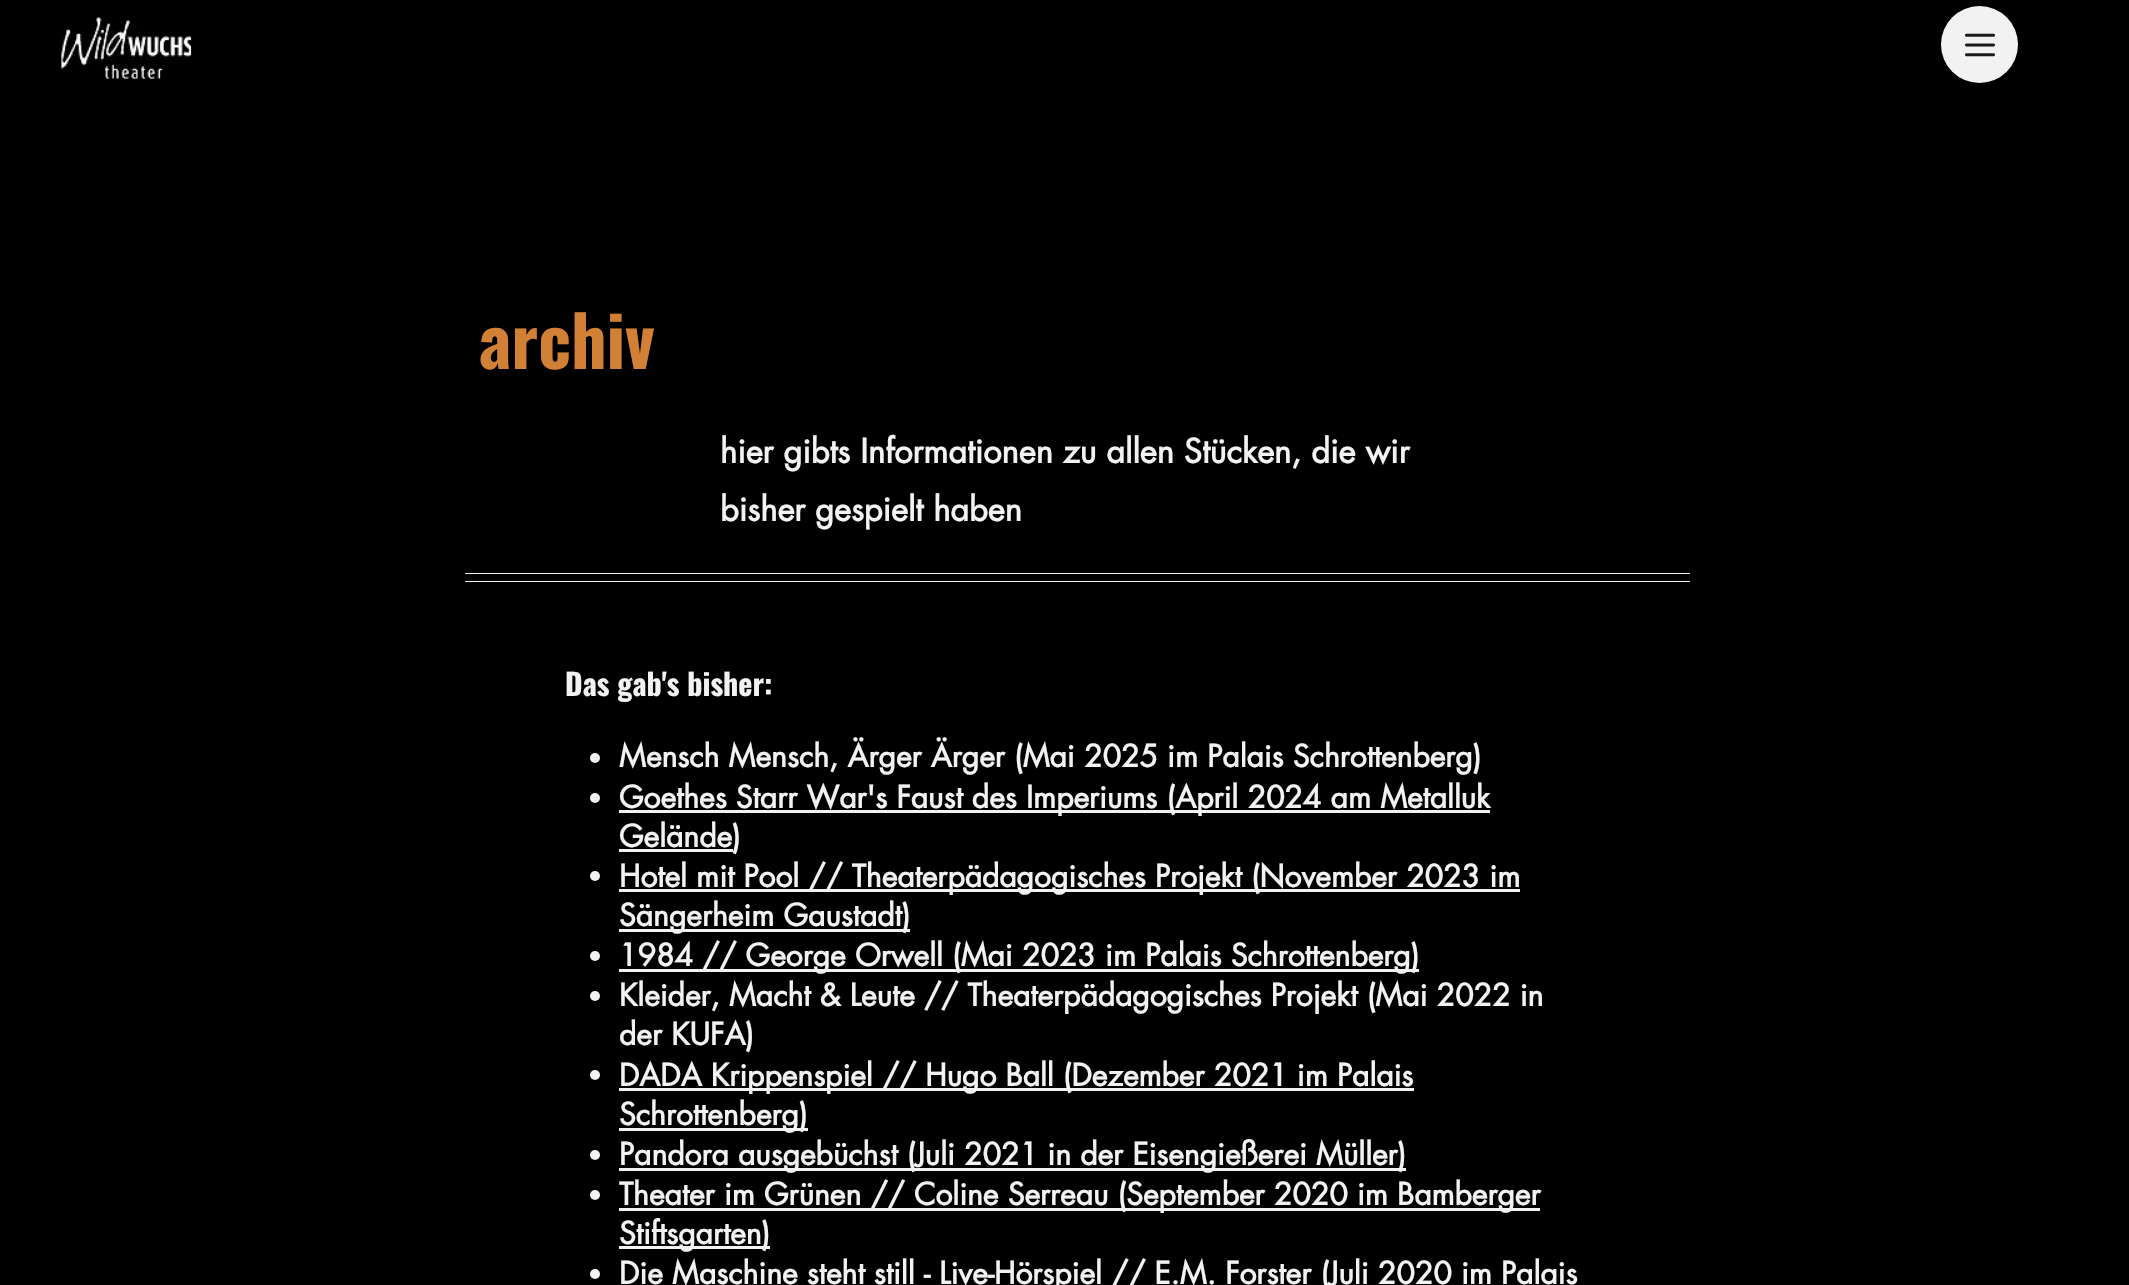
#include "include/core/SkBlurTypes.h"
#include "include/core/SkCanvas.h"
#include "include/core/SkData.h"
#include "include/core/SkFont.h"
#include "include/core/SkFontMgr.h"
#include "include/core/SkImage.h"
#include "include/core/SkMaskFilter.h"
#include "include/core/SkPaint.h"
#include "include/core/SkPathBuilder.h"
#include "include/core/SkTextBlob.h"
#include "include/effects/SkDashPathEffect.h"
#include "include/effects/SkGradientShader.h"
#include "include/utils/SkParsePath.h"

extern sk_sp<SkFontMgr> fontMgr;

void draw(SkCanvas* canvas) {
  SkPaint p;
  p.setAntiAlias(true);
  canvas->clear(SK_ColorBLACK);
  canvas->drawImageRect(SkImages::DeferredFromEncodedData(SkData::MakeFromFileName("images/1.png")), SkRect::MakeLTRB(61, 16, 192, 79), SkSamplingOptions());
  p.setColor(SkColorSetRGB(242, 242, 242));
  canvas->drawCircle(1979.5f, 44.5f, 38.5f, p);
  canvas->drawImageRect(SkImages::DeferredFromEncodedData(SkData::MakeFromFileName("images/2.png")), SkRect::MakeLTRB(1965, 33, 1995, 57), SkSamplingOptions());
  canvas->drawRect(SkRect::MakeLTRB(465, 573, 1690, 574), p);
  canvas->drawRect(SkRect::MakeLTRB(465, 581, 1690, 582), p);
  canvas->drawCircle(595, 758, 5, p);
  canvas->drawCircle(595, 798, 5, p);
  canvas->drawRect(SkRect::MakeLTRB(619, 810, 1490, 813), p);
  canvas->drawRect(SkRect::MakeLTRB(619, 849, 733, 852), p);
  canvas->drawCircle(595, 876, 5, p);
  canvas->drawRect(SkRect::MakeLTRB(619, 889, 1520, 892), p);
  canvas->drawRect(SkRect::MakeLTRB(619, 929, 910, 932), p);
  canvas->drawCircle(595, 956, 5, p);
  canvas->drawRect(SkRect::MakeLTRB(619, 969, 1419, 972), p);
  canvas->drawCircle(595, 996, 5, p);
  canvas->drawCircle(595, 1075, 5, p);
  canvas->drawRect(SkRect::MakeLTRB(619, 1088, 1414, 1091), p);
  canvas->drawRect(SkRect::MakeLTRB(619, 1128, 808, 1131), p);
  canvas->drawCircle(595, 1155, 5, p);
  canvas->drawRect(SkRect::MakeLTRB(619, 1168, 1406, 1171), p);
  canvas->drawCircle(595, 1195, 5, p);
  canvas->drawRect(SkRect::MakeLTRB(619, 1208, 1540, 1211), p);
  canvas->drawRect(SkRect::MakeLTRB(619, 1246, 770, 1249), p);
  canvas->drawCircle(595, 1274, 5, p);
  SkFont font1(fontMgr->matchFamilyStyle("Oswald", SkFontStyle::Bold()), 70);
  font1.setSubpixel(true);
  p.setColor(SkColorSetRGB(210, 128, 54));
  canvas->drawString("archiv", 478, 369, font1, p);
  SkFont font2(fontMgr->matchFamilyStyle("futura", SkFontStyle::Bold()), 32.5f);
  font2.setSubpixel(true);
  p.setColor(SkColorSetRGB(242, 242, 242));
  canvas->drawString("hier gibts Informationen zu allen Stücken, die wir", 720, 463, font2, p);
  canvas->drawString("bisher gespielt haben", 720, 521, font2, p);
  SkFont font3(fontMgr->matchFamilyStyle("Oswald", SkFontStyle::Bold()), 30);
  font3.setSubpixel(true);
  canvas->drawString("Das gab's bisher:", 565, 696, font3, p);
  SkFont font4(fontMgr->matchFamilyStyle("futura", SkFontStyle::Bold()), 30);
  font4.setSubpixel(true);
  canvas->drawString("Mensch Mensch, Ärger Ärger (Mai 2025 im Palais Schrottenberg)", 619, 767, font4, p);
  canvas->drawString("Goethes Starr War's Faust des Imperiums (April 2024 am Metalluk", 619, 808, font4, p);
  canvas->drawString("Gelände)", 619, 847, font4, p);
  canvas->drawString("Hotel mit Pool // Theaterpädagogisches Projekt (November 2023 im", 619, 887, font4, p);
  canvas->drawString("Sängerheim Gaustadt)", 619, 926, font4, p);
  canvas->drawString("1984 // George Orwell (Mai 2023 im Palais Schrottenberg)", 619, 966, font4, p);
  canvas->drawString("Kleider, Macht & Leute // Theaterpädagogisches Projekt (Mai 2022 in", 619, 1006, font4, p);
  canvas->drawString("der KUFA)", 619, 1045, font4, p);
  canvas->drawString("DADA Krippenspiel // Hugo Ball (Dezember 2021 im Palais", 619, 1086, font4, p);
  canvas->drawString("Schrottenberg)", 619, 1125, font4, p);
  canvas->drawString("Pandora ausgebüchst (Juli 2021 in der Eisengießerei Müller)", 619, 1165, font4, p);
  canvas->drawString("Theater im Grünen // Coline Serreau (September 2020 im Bamberger", 619, 1205, font4, p);
  canvas->drawString("Stiftsgarten)", 619, 1244, font4, p);
  canvas->drawString("Die Maschine steht still - Live-Hörspiel // E.M. Forster (Juli 2020 im Palais", 619, 1284, font4, p);
}
